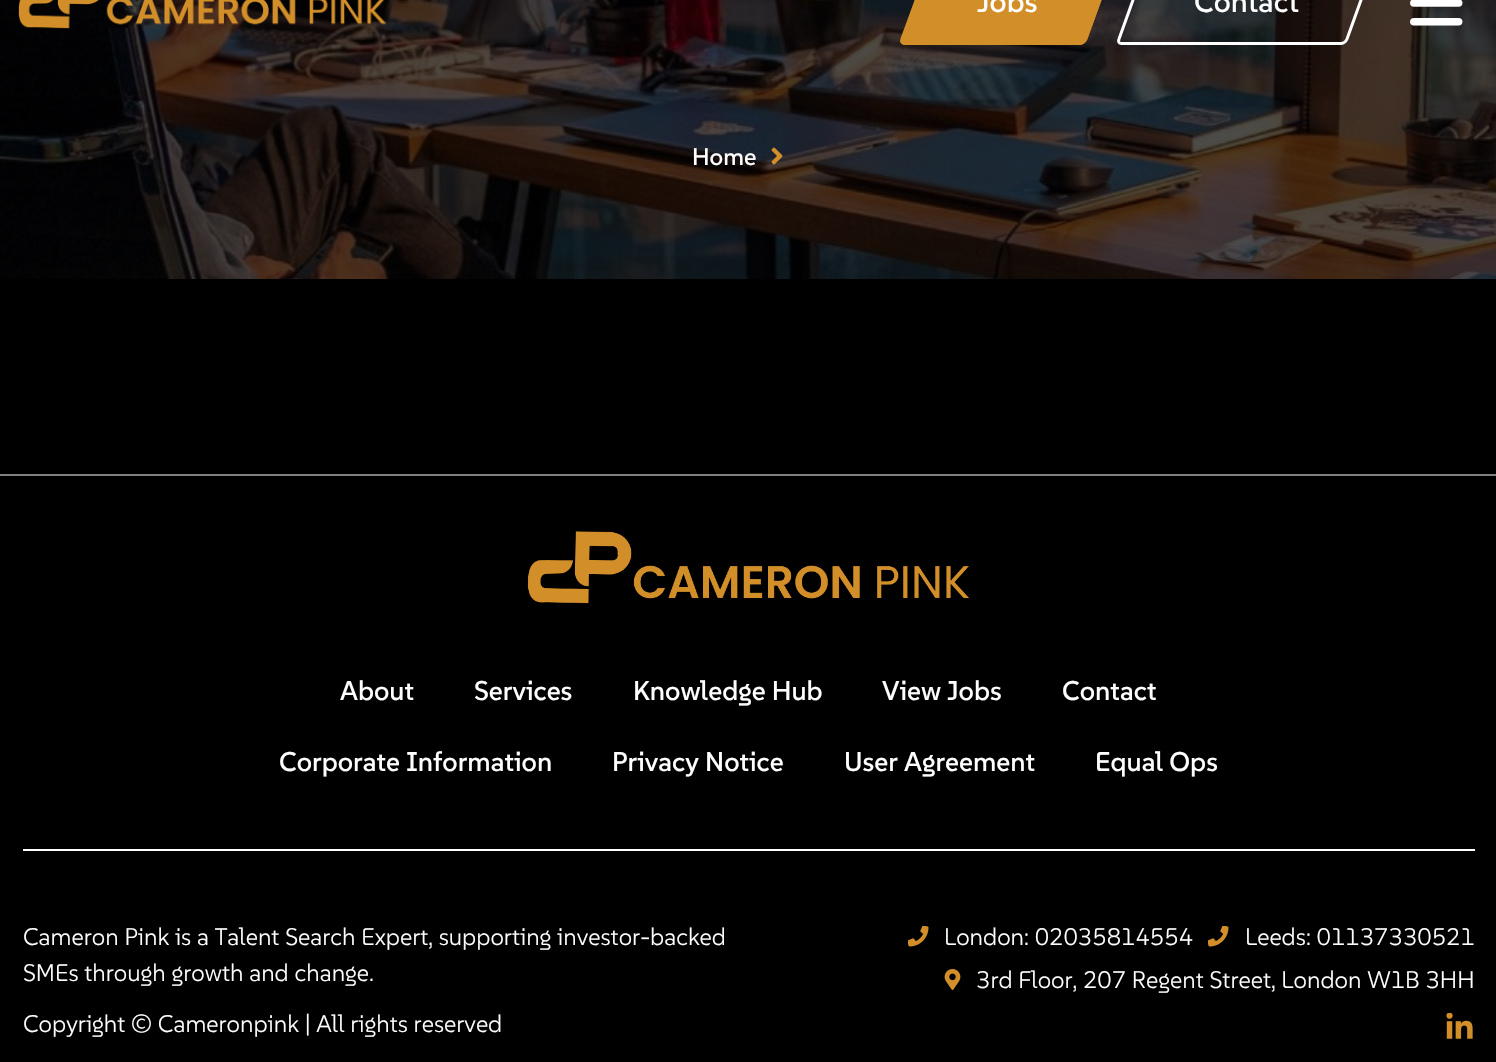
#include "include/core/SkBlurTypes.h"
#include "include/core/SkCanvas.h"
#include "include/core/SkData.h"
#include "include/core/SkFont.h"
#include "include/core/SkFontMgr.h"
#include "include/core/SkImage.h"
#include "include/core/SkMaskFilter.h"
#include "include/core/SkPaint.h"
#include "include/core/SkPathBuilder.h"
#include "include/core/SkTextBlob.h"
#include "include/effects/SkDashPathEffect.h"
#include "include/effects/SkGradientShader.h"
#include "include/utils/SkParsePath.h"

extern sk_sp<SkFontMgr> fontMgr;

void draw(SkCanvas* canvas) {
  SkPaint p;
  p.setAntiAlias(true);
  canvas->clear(SK_ColorBLACK);
  canvas->drawImageRect(SkImages::DeferredFromEncodedData(SkData::MakeFromFileName("images/3.png")), SkRect::MakeLTRB(0, 0, 1496, 279), SkSamplingOptions());
  canvas->drawImageRect(SkImages::DeferredFromEncodedData(SkData::MakeFromFileName("images/1.png")), SkRect::MakeLTRB(18, 0, 387, 29), SkSamplingOptions());
  p.setColor(SkColorSetRGB(210, 143, 41));
  canvas->drawPath(SkPathBuilder().moveTo(936, -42).lineTo(1111, -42).cubicTo(1114, -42, 1116, -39, 1115, -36).lineTo(1087, 39).cubicTo(1086, 42, 1082, 45, 1079, 45).lineTo(905, 45).cubicTo(901, 45, 899, 42, 901, 39).lineTo(928, -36).cubicTo(929, -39, 933, -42, 936, -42).close().detach(), p);
  p.setStyle(SkPaint::kStroke_Style);
  p.setStrokeWidth(3);
  canvas->drawPath(SkPathBuilder().moveTo(935.5f, -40.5f).lineTo(1110, -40.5f).cubicTo(1112.5f, -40.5f, 1114, -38.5f, 1113, -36).lineTo(1086, 39).cubicTo(1085, 41.5f, 1082, 43.5f, 1079.5f, 43.5f).lineTo(905, 43.5f).cubicTo(902.5f, 43.5f, 901.5f, 41.5f, 902, 39).lineTo(929.5f, -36).cubicTo(930.5f, -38.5f, 933, -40.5f, 935.5f, -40.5f).close().detach(), p);
  p.setColor(SK_ColorWHITE);
  canvas->drawPath(SkPathBuilder().moveTo(1152, -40.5f).lineTo(1371, -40.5f).cubicTo(1373.5f, -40.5f, 1375, -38.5f, 1374, -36).lineTo(1347, 39).cubicTo(1346, 41.5f, 1343, 43.5f, 1340.5f, 43.5f).lineTo(1121.5f, 43.5f).cubicTo(1119, 43.5f, 1118, 41.5f, 1119, 39).lineTo(1146, -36).cubicTo(1147, -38.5f, 1149.5f, -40.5f, 1152, -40.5f).close().detach(), p);
  canvas->drawImageRect(SkImages::DeferredFromEncodedData(SkData::MakeFromFileName("images/2.png")), SkRect::MakeLTRB(1410, 0, 1463, 26), SkSamplingOptions());
  canvas->drawImageRect(SkImages::DeferredFromEncodedData(SkData::MakeFromFileName("images/4.png")), SkRect::MakeLTRB(771, 147, 783, 165), SkSamplingOptions());
  p.setStyle(SkPaint::kFill_Style);
  p.setColor(SkColorSetRGB(128, 128, 128));
  canvas->drawRect(SkRect::MakeLTRB(0, 474, 1496, 476), p);
  canvas->drawImageRect(SkImages::DeferredFromEncodedData(SkData::MakeFromFileName("images/5.png")), SkRect::MakeLTRB(527, 531, 969, 604), SkSamplingOptions());
  p.setColor(SK_ColorWHITE);
  canvas->drawRect(SkRect::MakeLTRB(23, 849, 1475, 851), p);
  canvas->drawImageRect(SkImages::DeferredFromEncodedData(SkData::MakeFromFileName("images/6.png")), SkRect::MakeLTRB(908, 926, 929, 947), SkSamplingOptions());
  canvas->drawImageRect(SkImages::DeferredFromEncodedData(SkData::MakeFromFileName("images/6.png")), SkRect::MakeLTRB(1208, 926, 1229, 947), SkSamplingOptions());
  canvas->drawImageRect(SkImages::DeferredFromEncodedData(SkData::MakeFromFileName("images/7.png")), SkRect::MakeLTRB(944, 969, 961, 990), SkSamplingOptions());
  canvas->drawImageRect(SkImages::DeferredFromEncodedData(SkData::MakeFromFileName("images/8.png")), SkRect::MakeLTRB(1446, 1013, 1473, 1039), SkSamplingOptions());
  SkFont font1(fontMgr->matchFamilyStyle("SUSE", SkFontStyle(500, SkFontStyle::kNormal_Width, SkFontStyle::kUpright_Slant)), 30);
  font1.setSubpixel(true);
  canvas->drawString("Jobs", 977, 12, font1, p);
  canvas->drawString("Contact", 1194, 12, font1, p);
  SkFont font2(fontMgr->matchFamilyStyle("SUSE", SkFontStyle(500, SkFontStyle::kNormal_Width, SkFontStyle::kUpright_Slant)), 24);
  font2.setSubpixel(true);
  canvas->drawString("Home", 692, 165, font2, p);
  SkFont font3(fontMgr->matchFamilyStyle("SUSE", SkFontStyle(500, SkFontStyle::kNormal_Width, SkFontStyle::kUpright_Slant)), 27);
  font3.setSubpixel(true);
  canvas->drawString("About", 340, 700, font3, p);
  canvas->drawString("Services", 474, 700, font3, p);
  canvas->drawString("Knowledge Hub", 633, 700, font3, p);
  canvas->drawString("View Jobs", 882, 700, font3, p);
  canvas->drawString("Contact", 1062, 700, font3, p);
  canvas->drawString("Corporate Information", 279, 771, font3, p);
  canvas->drawString("Privacy Notice", 612, 771, font3, p);
  canvas->drawString("User Agreement", 844, 771, font3, p);
  canvas->drawString("Equal Ops", 1095, 771, font3, p);
  SkFont font4(fontMgr->matchFamilyStyle("SUSE", SkFontStyle(300, SkFontStyle::kNormal_Width, SkFontStyle::kUpright_Slant)), 24);
  font4.setSubpixel(true);
  canvas->drawString("Cameron Pink is a Talent Search Expert, supporting investor-backed", 23, 945, font4, p);
  canvas->drawString("SMEs through growth and change.", 23, 981, font4, p);
  canvas->drawString("Copyright © Cameronpink | All rights reserved", 23, 1032, font4, p);
  canvas->drawString("London: 02035814554", 944, 945, font4, p);
  canvas->drawString("Leeds: 01137330521", 1245, 945, font4, p);
  canvas->drawString("3rd Floor, 207 Regent Street, London W1B 3HH", 976, 988, font4, p);
}
